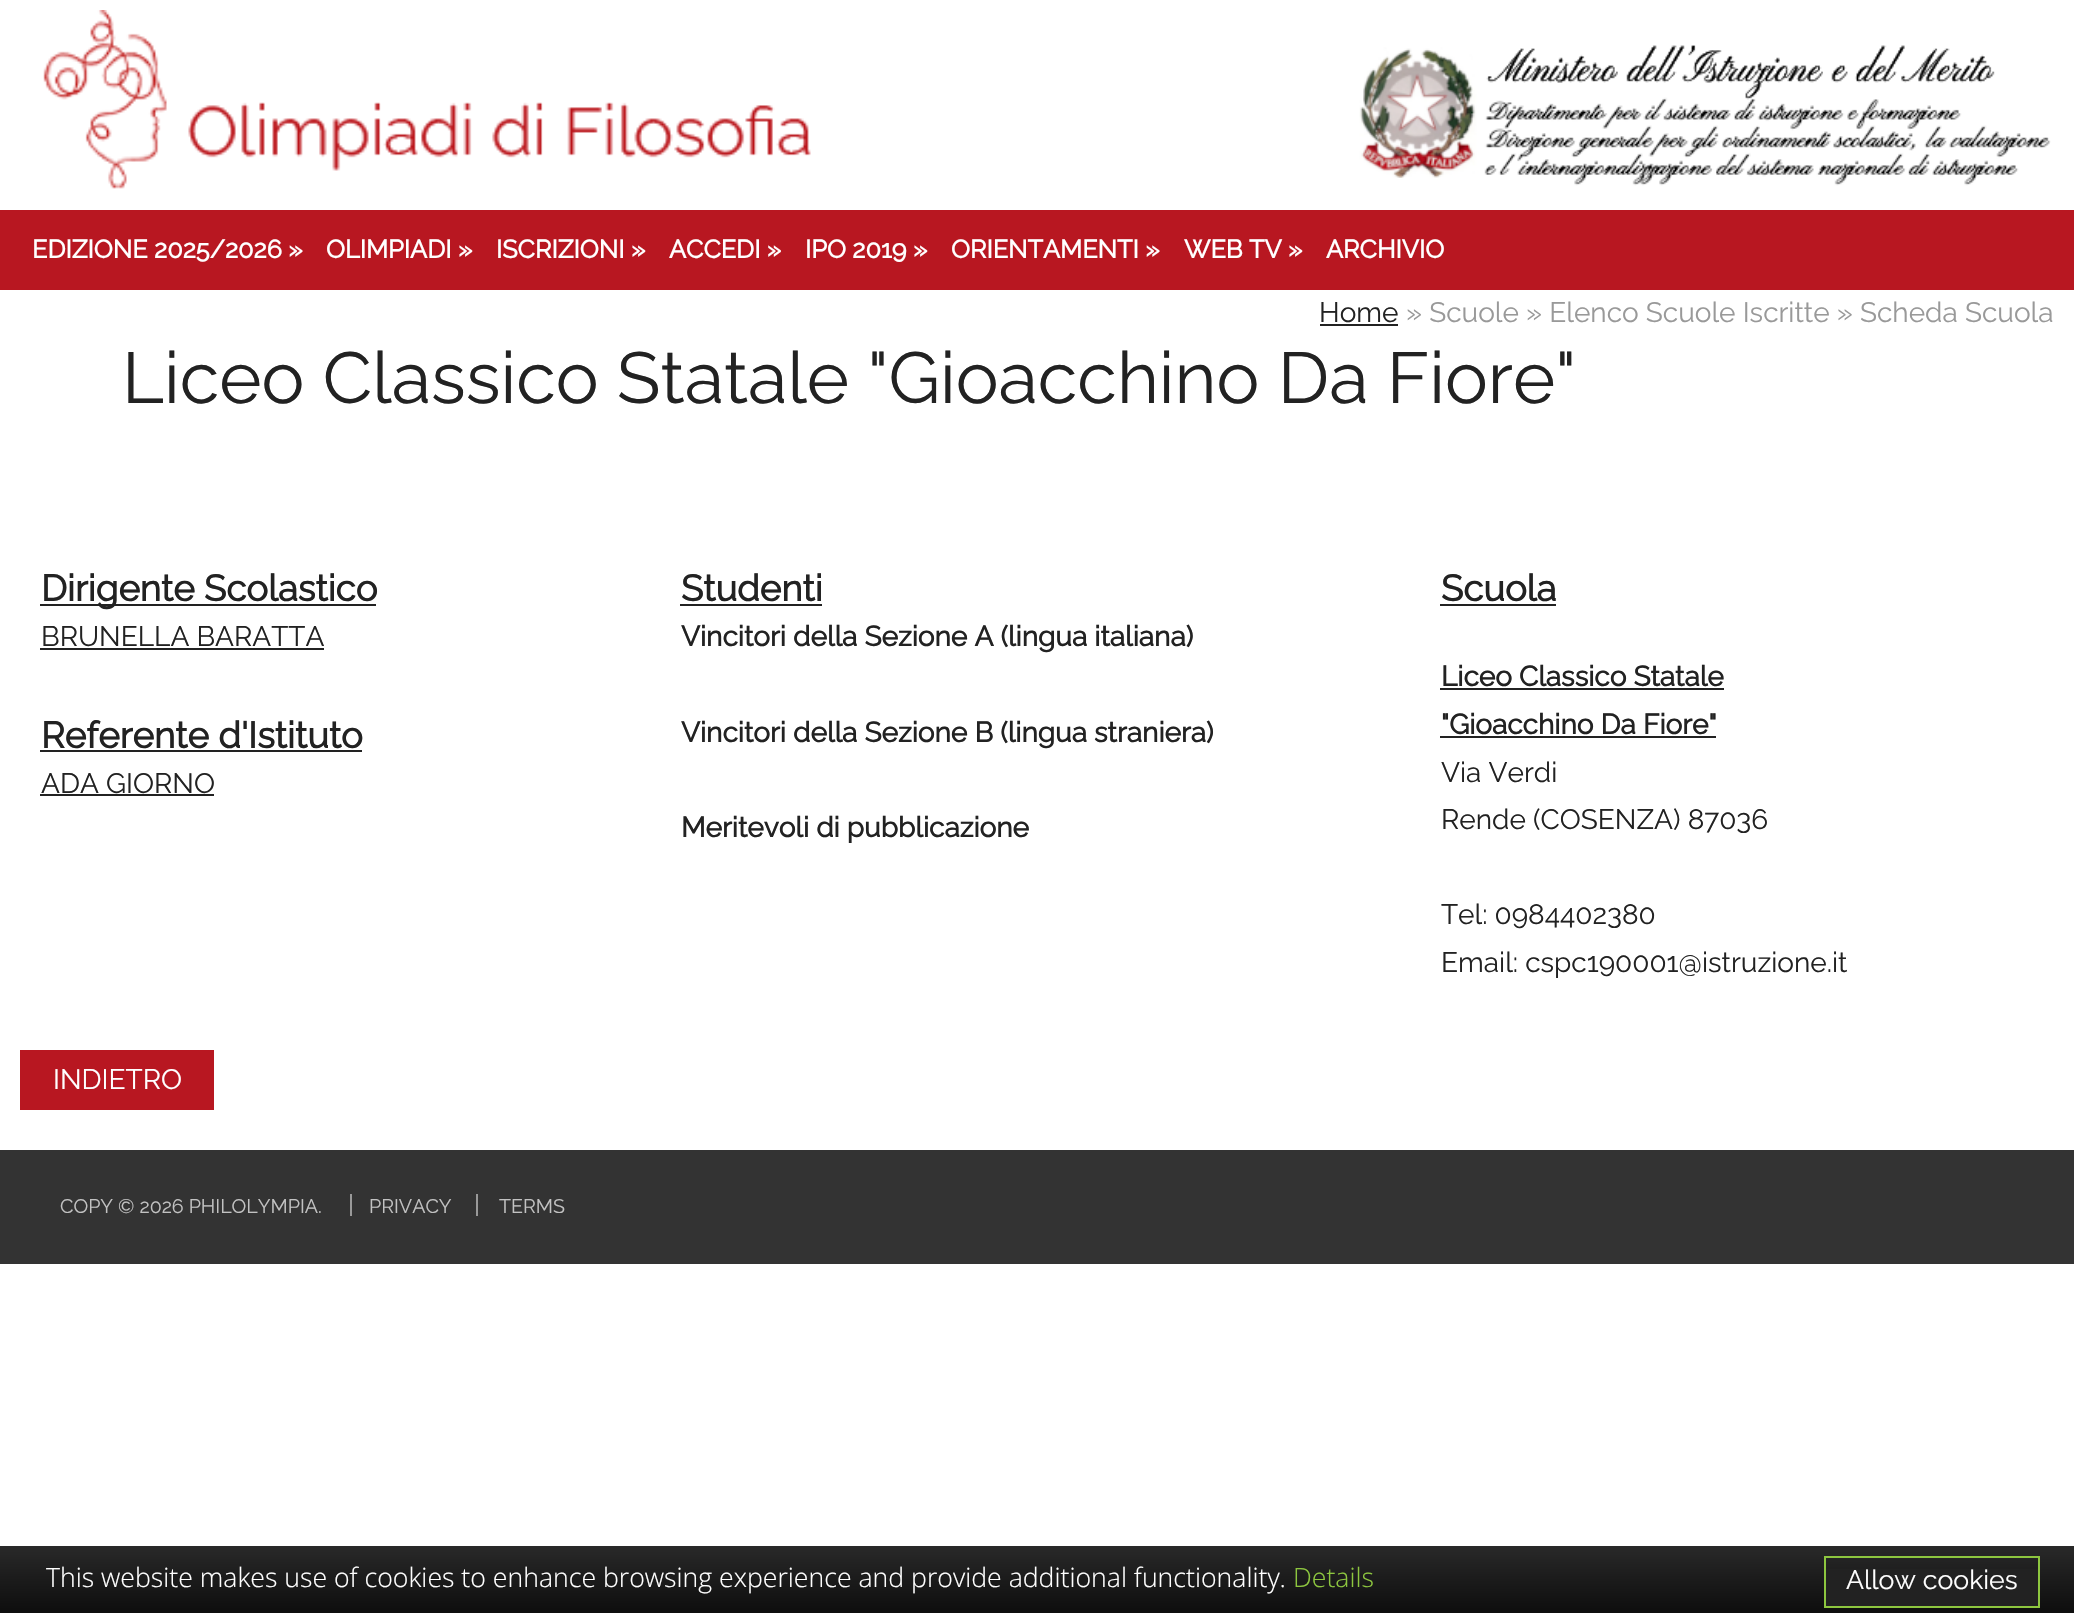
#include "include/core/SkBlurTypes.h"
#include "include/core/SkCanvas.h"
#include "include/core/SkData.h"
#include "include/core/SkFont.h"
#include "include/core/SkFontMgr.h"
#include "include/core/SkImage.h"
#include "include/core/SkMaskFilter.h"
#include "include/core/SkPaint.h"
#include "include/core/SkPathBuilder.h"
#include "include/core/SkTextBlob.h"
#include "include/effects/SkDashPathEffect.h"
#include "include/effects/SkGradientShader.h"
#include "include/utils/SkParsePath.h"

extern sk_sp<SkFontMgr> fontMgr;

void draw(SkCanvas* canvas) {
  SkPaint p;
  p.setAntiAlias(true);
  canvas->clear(SK_ColorWHITE);
  canvas->drawImageRect(SkImages::DeferredFromEncodedData(SkData::MakeFromFileName("images/1.png")), SkRect::MakeLTRB(43, 10, 811, 189), SkSamplingOptions());
  canvas->drawImageRect(SkImages::DeferredFromEncodedData(SkData::MakeFromFileName("images/2.png")), SkRect::MakeLTRB(1359, 45, 2051, 186), SkSamplingOptions());
  p.setColor(SkColorSetRGB(184, 23, 33));
  canvas->drawRect(SkRect::MakeLTRB(0, 210, 2074, 290), p);
  p.setColor(SkColorSetRGB(34, 34, 34));
  canvas->drawRect(SkRect::MakeLTRB(1320, 324, 1398, 326), p);
  canvas->drawRect(SkRect::MakeLTRB(40, 604, 376, 606), p);
  canvas->drawRect(SkRect::MakeLTRB(40, 648, 324, 650), p);
  canvas->drawRect(SkRect::MakeLTRB(40, 750, 362, 752), p);
  canvas->drawRect(SkRect::MakeLTRB(40, 794, 214, 796), p);
  canvas->drawRect(SkRect::MakeLTRB(680, 604, 822, 606), p);
  canvas->drawRect(SkRect::MakeLTRB(1440, 604, 1556, 606), p);
  canvas->drawRect(SkRect::MakeLTRB(1440, 688, 1724, 690), p);
  canvas->drawRect(SkRect::MakeLTRB(1440, 736, 1716, 738), p);
  p.setColor(SkColorSetRGB(184, 23, 33));
  canvas->drawRect(SkRect::MakeLTRB(20, 1050, 214, 1110), p);
  p.setColor(SkColorSetRGB(51, 51, 51));
  canvas->drawRect(SkRect::MakeLTRB(0, 1150, 2074, 1264), p);
  p.setColor(SkColorSetRGB(153, 153, 153));
  canvas->drawRect(SkRect::MakeLTRB(350, 1194, 352, 1216), p);
  canvas->drawRect(SkRect::MakeLTRB(476, 1194, 478, 1216), p);
  {
    const SkColor colors[] = {SkColorSetRGB(41, 41, 41), SkColorSetRGB(13, 13, 13)};
    const float stops[] = {0, 1};
    const SkPoint ends[] = {{1043, 1546}, {1043, 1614}};
    p.setShader(SkGradientShader::MakeLinear(ends, colors, stops, 2, SkTileMode::kClamp));
    p.setAlpha(255);
  }
  canvas->drawRect(SkRect::MakeLTRB(0, 1546, 2074, 1613), p);
  p.setShader(nullptr);
  p.setColor(SkColorSetRGB(34, 34, 34));
  canvas->drawRect(SkRect::MakeLTRB(1826, 1569, 2038, 1606), p);
  p.setStyle(SkPaint::kStroke_Style);
  p.setStrokeWidth(2);
  p.setColor(SkColorSetRGB(141, 198, 63));
  canvas->drawRect(SkRect::MakeLTRB(1825, 1557, 2039, 1607), p);
  SkFont font1(fontMgr->matchFamilyStyle("Raleway", SkFontStyle::Bold()), 25.25f);
  font1.setSubpixel(true);
  p.setStyle(SkPaint::kFill_Style);
  p.setColor(SK_ColorWHITE);
  canvas->drawString("EDIZIONE 2025/2026 »", 32, 258, font1, p);
  canvas->drawString("OLIMPIADI »", 326, 258, font1, p);
  canvas->drawString("ISCRIZIONI »", 496, 258, font1, p);
  canvas->drawString("ACCEDI »", 669, 258, font1, p);
  canvas->drawString("IPO 2019 »", 805, 258, font1, p);
  canvas->drawString("ORIENTAMENTI »", 951, 258, font1, p);
  canvas->drawString("WEB TV »", 1184, 258, font1, p);
  canvas->drawString("ARCHIVIO", 1326, 258, font1, p);
  SkFont font2(fontMgr->matchFamilyStyle("Raleway", SkFontStyle(100, SkFontStyle::kNormal_Width, SkFontStyle::kUpright_Slant)), 28);
  font2.setSubpixel(true);
  p.setColor(SkColorSetRGB(34, 34, 34));
  canvas->drawString("Home", 1319, 322, font2, p);
  p.setColor(SkColorSetRGB(153, 153, 153));
  canvas->drawString("» Scuole » Elenco Scuole Iscritte » Scheda Scuola", 1406, 322, font2, p);
  SkFont font3(fontMgr->matchFamilyStyle("Raleway", SkFontStyle(100, SkFontStyle::kNormal_Width, SkFontStyle::kUpright_Slant)), 72);
  font3.setSubpixel(true);
  p.setColor(SkColorSetRGB(34, 34, 34));
  canvas->drawString("Liceo Classico Statale \"Gioacchino Da Fiore\"", 122, 403, font3, p);
  SkFont font4(fontMgr->matchFamilyStyle("Raleway", SkFontStyle::Bold()), 36.5f);
  font4.setSubpixel(true);
  canvas->drawString("Dirigente Scolastico", 41, 601, font4, p);
  canvas->drawString("BRUNELLA BARATTA", 41, 646, font2, p);
  canvas->drawString("Referente d'Istituto", 41, 748, font4, p);
  canvas->drawString("ADA GIORNO", 41, 793, font2, p);
  canvas->drawString("Studenti", 681, 601, font4, p);
  SkFont font5(fontMgr->matchFamilyStyle("Raleway", SkFontStyle::Bold()), 28);
  font5.setSubpixel(true);
  canvas->drawString("Vincitori della Sezione A (lingua italiana)", 681, 646, font5, p);
  canvas->drawString("Vincitori della Sezione B (lingua straniera)", 681, 742, font5, p);
  canvas->drawString("Meritevoli di pubblicazione", 681, 837, font5, p);
  canvas->drawString("Scuola", 1441, 601, font4, p);
  canvas->drawString("Liceo Classico Statale", 1441, 686, font5, p);
  canvas->drawString("\"Gioacchino Da Fiore\"", 1441, 734, font5, p);
  canvas->drawString("Via Verdi", 1441, 782, font2, p);
  canvas->drawString("Rende (COSENZA) 87036", 1441, 829, font2, p);
  canvas->drawString("Tel: 0984402380", 1441, 924, font2, p);
  canvas->drawString("Email: cspc190001@istruzione.it", 1441, 972, font2, p);
  p.setColor(SK_ColorWHITE);
  canvas->drawString("INDIETRO", 53, 1089, font2, p);
  SkFont font6(fontMgr->matchFamilyStyle("Raleway", SkFontStyle(100, SkFontStyle::kNormal_Width, SkFontStyle::kUpright_Slant)), 19.6f);
  font6.setSubpixel(true);
  p.setColor(SkColorSetRGB(194, 194, 194));
  canvas->drawString("COPY © 2026 PHILOLYMPIA.", 60, 1213, font6, p);
  canvas->drawString("PRIVACY", 369, 1213, font6, p);
  canvas->drawString("TERMS", 499, 1213, font6, p);
  SkFont font7(fontMgr->matchFamilyStyle("Open Sans", SkFontStyle(300, SkFontStyle::kNormal_Width, SkFontStyle::kUpright_Slant)), 26.65f);
  font7.setSubpixel(true);
  p.setColor(SK_ColorWHITE);
  canvas->drawString("This website makes use of cookies to enhance browsing experience and provide additional functionality.", 46, 1587, font7, p);
  p.setColor(SkColorSetRGB(141, 198, 63));
  canvas->drawString("Details", 1293, 1587, font7, p);
  SkFont font8(fontMgr->matchFamilyStyle("Raleway", SkFontStyle(100, SkFontStyle::kNormal_Width, SkFontStyle::kUpright_Slant)), 26.65f);
  font8.setSubpixel(true);
  p.setColor(SK_ColorWHITE);
  canvas->drawString("Allow cookies", 1846, 1589, font8, p);
}
